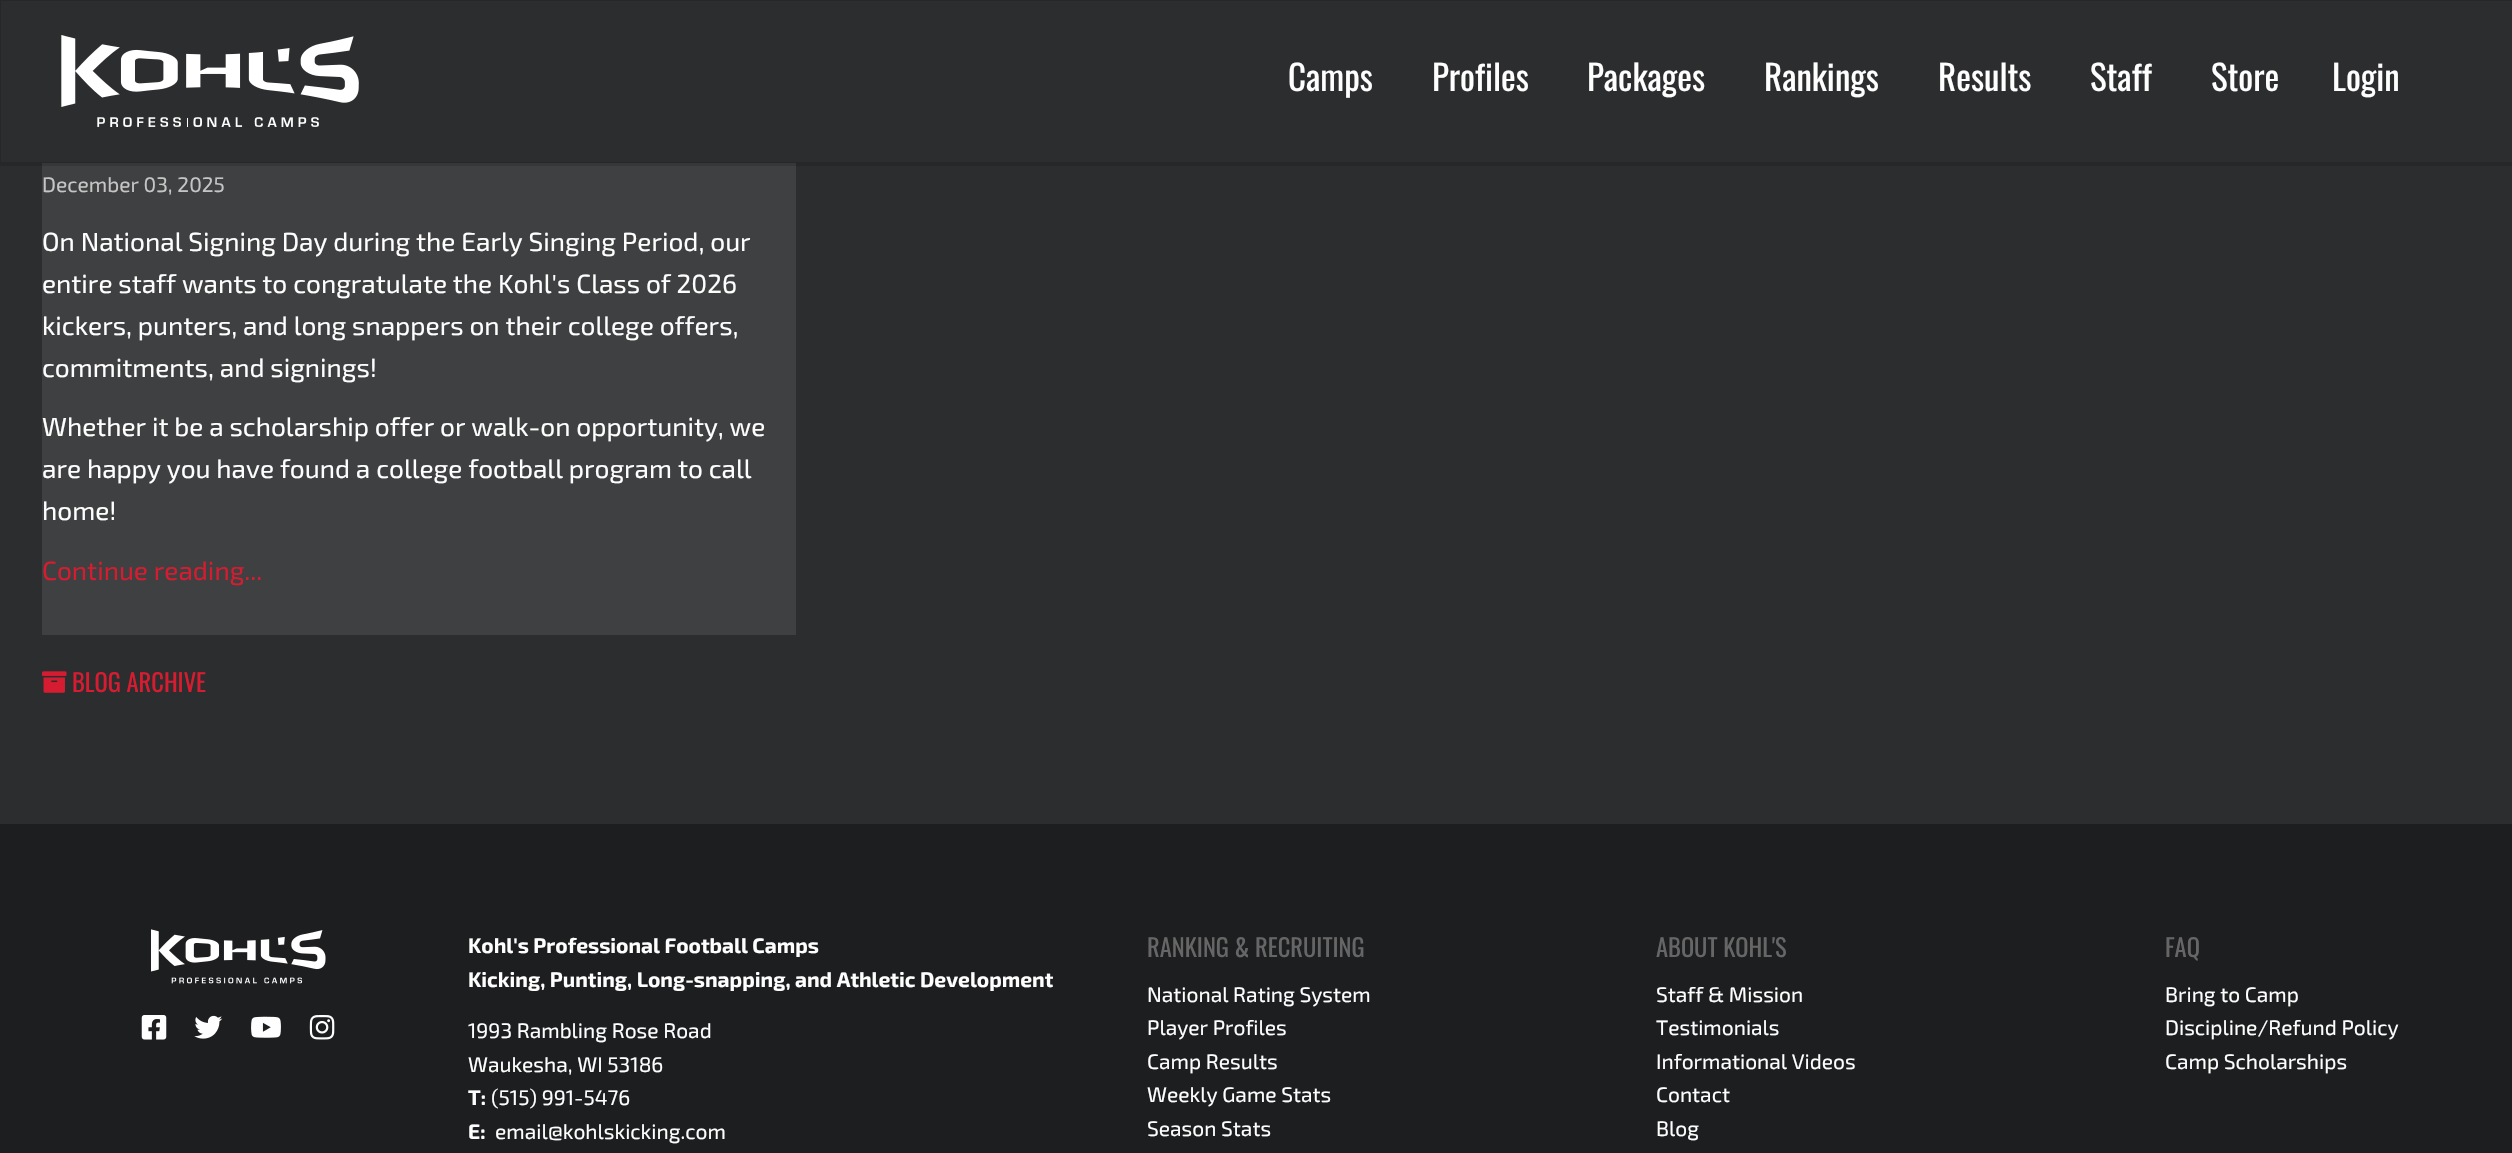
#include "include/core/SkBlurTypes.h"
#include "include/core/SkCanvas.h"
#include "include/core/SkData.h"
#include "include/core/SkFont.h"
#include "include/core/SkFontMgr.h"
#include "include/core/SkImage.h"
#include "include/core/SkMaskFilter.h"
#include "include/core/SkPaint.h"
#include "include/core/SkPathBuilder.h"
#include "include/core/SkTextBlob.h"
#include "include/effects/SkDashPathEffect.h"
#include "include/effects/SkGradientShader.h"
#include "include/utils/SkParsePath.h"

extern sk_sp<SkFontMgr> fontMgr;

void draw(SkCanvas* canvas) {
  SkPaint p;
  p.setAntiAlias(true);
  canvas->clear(SkColorSetRGB(44, 45, 47));
  canvas->drawImageRect(SkImages::DeferredFromEncodedData(SkData::MakeFromFileName("images/1.png")), SkRect::MakeLTRB(61, 35, 359, 127), SkSamplingOptions());
  p.setColor(SkColorSetRGB(63, 64, 65));
  canvas->drawRect(SkRect::MakeLTRB(42, 163, 796, 635), p);
  p.setStyle(SkPaint::kStroke_Style);
  p.setStrokeWidth(4);
  p.setColor(SkColorSetARGB(38, 0, 0, 0));
  canvas->drawRect(SkRect::MakeLTRB(-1, -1, 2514, 164), p);
  canvas->drawImageRect(SkImages::DeferredFromEncodedData(SkData::MakeFromFileName("images/2.png")), SkRect::MakeLTRB(42, 671, 67, 693), SkSamplingOptions());
  p.setStyle(SkPaint::kFill_Style);
  p.setColor(SkColorSetRGB(29, 30, 32));
  canvas->drawRect(SkRect::MakeLTRB(0, 824, 2512, 1153), p);
  canvas->drawImageRect(SkImages::DeferredFromEncodedData(SkData::MakeFromFileName("images/3.png")), SkRect::MakeLTRB(151, 929, 326, 984), SkSamplingOptions());
  canvas->drawImageRect(SkImages::DeferredFromEncodedData(SkData::MakeFromFileName("images/4.png")), SkRect::MakeLTRB(141, 1015, 167, 1040), SkSamplingOptions());
  canvas->drawImageRect(SkImages::DeferredFromEncodedData(SkData::MakeFromFileName("images/5.png")), SkRect::MakeLTRB(194, 1015, 223, 1039), SkSamplingOptions());
  canvas->drawImageRect(SkImages::DeferredFromEncodedData(SkData::MakeFromFileName("images/6.png")), SkRect::MakeLTRB(251, 1016, 281, 1038), SkSamplingOptions());
  canvas->drawImageRect(SkImages::DeferredFromEncodedData(SkData::MakeFromFileName("images/7.png")), SkRect::MakeLTRB(309, 1015, 335, 1040), SkSamplingOptions());
  SkFont font1(fontMgr->matchFamilyStyle("Oswald", SkFontStyle::Normal()), 35);
  font1.setSubpixel(true);
  p.setColor(SkColorSetRGB(254, 254, 254));
  canvas->drawString("Camps", 1288, 91, font1, p);
  canvas->drawString("Profiles", 1432, 91, font1, p);
  canvas->drawString("Packages", 1587, 91, font1, p);
  canvas->drawString("Rankings", 1764, 91, font1, p);
  canvas->drawString("Results", 1938, 91, font1, p);
  canvas->drawString("Staff", 2090, 91, font1, p);
  canvas->drawString("Store", 2211, 91, font1, p);
  canvas->drawString("Login", 2332, 91, font1, p);
  SkFont font2(fontMgr->matchFamilyStyle("Exo 2", SkFontStyle::Normal()), 21);
  font2.setSubpixel(true);
  p.setColor(SkColorSetRGB(197, 197, 197));
  canvas->drawString("December 03, 2025", 42, 192, font2, p);
  SkFont font3(fontMgr->matchFamilyStyle("Exo 2", SkFontStyle::Normal()), 26.25f);
  font3.setSubpixel(true);
  p.setColor(SkColorSetRGB(254, 254, 254));
  canvas->drawString("On National Signing Day during the Early Singing Period, our", 42, 251, font3, p);
  canvas->drawString("entire staff wants to congratulate the Kohl's Class of 2026", 42, 293, font3, p);
  canvas->drawString("kickers, punters, and long snappers on their college offers,", 42, 335, font3, p);
  canvas->drawString("commitments, and signings!", 42, 377, font3, p);
  canvas->drawString("Whether it be a scholarship offer or walk-on opportunity, we", 42, 436, font3, p);
  canvas->drawString("are happy you have found a college football program to call", 42, 478, font3, p);
  canvas->drawString("home!", 42, 520, font3, p);
  p.setColor(SkColorSetRGB(213, 28, 48));
  canvas->drawString("Continue reading...", 42, 580, font3, p);
  SkFont font4(fontMgr->matchFamilyStyle("Oswald", SkFontStyle::Normal()), 24.5f);
  font4.setSubpixel(true);
  canvas->drawString("BLOG ARCHIVE", 72, 692, font4, p);
  SkFont font5(fontMgr->matchFamilyStyle("Exo 2", SkFontStyle::Bold()), 21);
  font5.setSubpixel(true);
  p.setColor(SkColorSetRGB(254, 254, 254));
  canvas->drawString("Kohl's Professional Football Camps", 468, 953, font5, p);
  canvas->drawString("Kicking, Punting, Long-snapping, and Athletic Development", 468, 987, font5, p);
  canvas->drawString("1993 Rambling Rose Road", 468, 1038, font2, p);
  canvas->drawString("Waukesha, WI 53186", 468, 1072, font2, p);
  canvas->drawString("T:", 468, 1105, font5, p);
  canvas->drawString("(515) 991-5476", 491, 1105, font2, p);
  canvas->drawString("E:", 468, 1139, font5, p);
  canvas->drawString("email@kohlskicking.com", 495, 1139, font2, p);
  p.setColor(SkColorSetRGB(102, 102, 102));
  canvas->drawString("RANKING & RECRUITING", 1147, 957, font4, p);
  p.setColor(SkColorSetRGB(254, 254, 254));
  canvas->drawString("National Rating System", 1147, 1002, font2, p);
  canvas->drawString("Player Profiles", 1147, 1035, font2, p);
  canvas->drawString("Camp Results", 1147, 1069, font2, p);
  canvas->drawString("Weekly Game Stats", 1147, 1102, font2, p);
  canvas->drawString("Season Stats", 1147, 1136, font2, p);
  p.setColor(SkColorSetRGB(102, 102, 102));
  canvas->drawString("ABOUT KOHL'S", 1656, 957, font4, p);
  p.setColor(SkColorSetRGB(254, 254, 254));
  canvas->drawString("Staff & Mission", 1656, 1002, font2, p);
  canvas->drawString("Testimonials", 1656, 1035, font2, p);
  canvas->drawString("Informational Videos", 1656, 1069, font2, p);
  canvas->drawString("Contact", 1656, 1102, font2, p);
  canvas->drawString("Blog", 1656, 1136, font2, p);
  p.setColor(SkColorSetRGB(102, 102, 102));
  canvas->drawString("FAQ", 2165, 957, font4, p);
  p.setColor(SkColorSetRGB(254, 254, 254));
  canvas->drawString("Bring to Camp", 2165, 1002, font2, p);
  canvas->drawString("Discipline/Refund Policy", 2165, 1035, font2, p);
  canvas->drawString("Camp Scholarships", 2165, 1069, font2, p);
}
